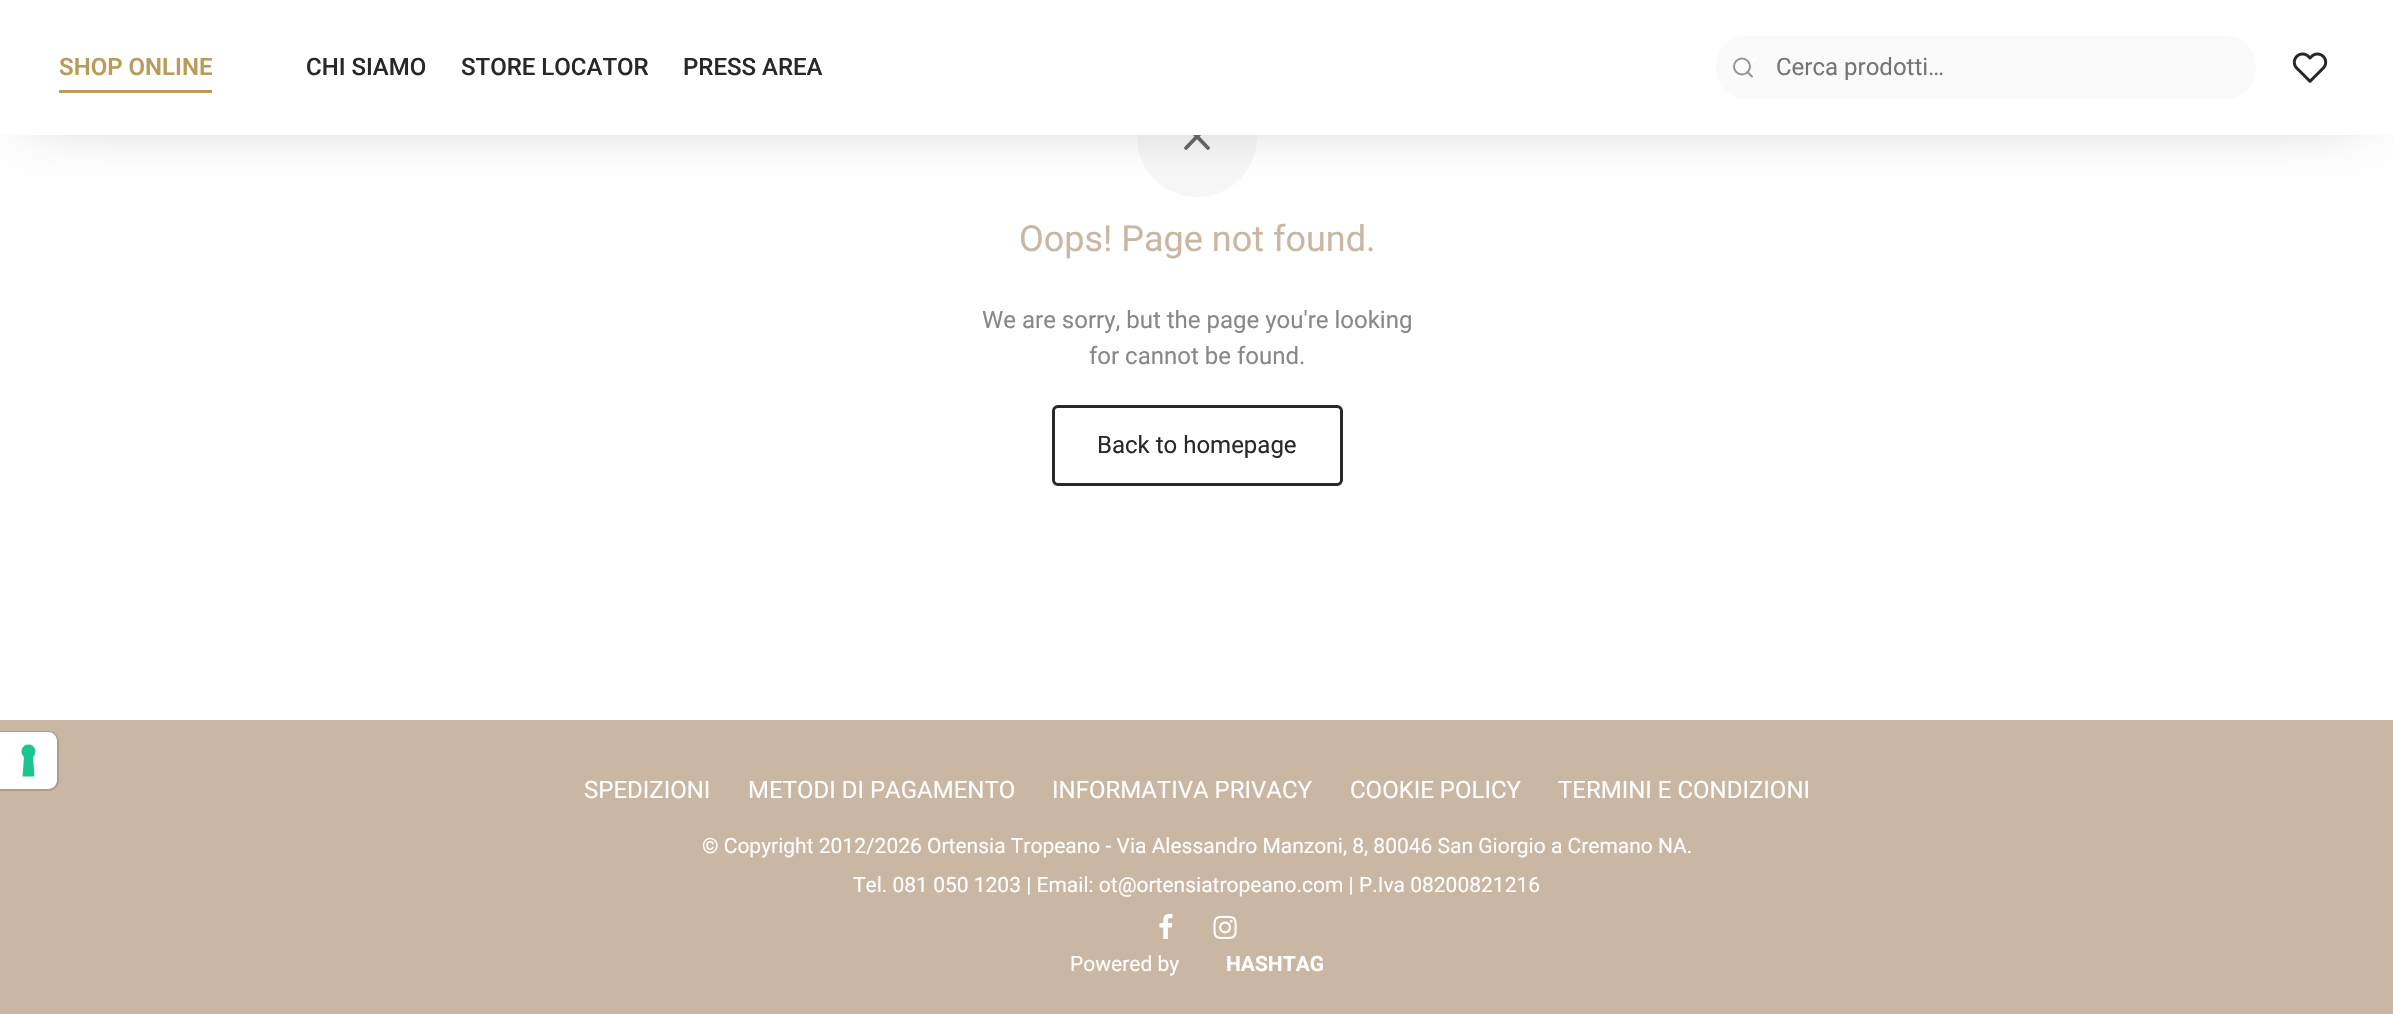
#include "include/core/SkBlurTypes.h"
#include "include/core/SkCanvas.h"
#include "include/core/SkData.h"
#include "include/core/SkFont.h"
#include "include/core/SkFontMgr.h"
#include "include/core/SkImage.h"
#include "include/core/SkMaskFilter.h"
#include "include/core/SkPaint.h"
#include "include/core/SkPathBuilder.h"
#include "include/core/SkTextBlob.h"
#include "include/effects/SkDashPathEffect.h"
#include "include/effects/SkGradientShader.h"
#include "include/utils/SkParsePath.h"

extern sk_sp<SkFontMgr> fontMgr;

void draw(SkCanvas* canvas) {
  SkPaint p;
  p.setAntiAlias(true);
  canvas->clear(SK_ColorWHITE);
  p.setColor(SkColorSetRGB(201, 183, 163));
  canvas->drawRect(SkRect::MakeLTRB(0, 720, 2393, 1014), p);
  p.setStyle(SkPaint::kStroke_Style);
  p.setStrokeWidth(2);
  p.setColor(SkColorSetRGB(171, 156, 139));
  canvas->drawPath(SkPathBuilder().moveTo(0, 732).lineTo(48, 732).cubicTo(53.5f, 732, 58, 736.5f, 58, 742).lineTo(58, 780).cubicTo(58, 785.5f, 53.5f, 790, 48, 790).lineTo(0, 790).close().detach(), p);
  p.setStyle(SkPaint::kFill_Style);
  p.setColor(SK_ColorWHITE);
  canvas->drawPath(SkPathBuilder().moveTo(0, 732).lineTo(48, 732).cubicTo(53, 732, 57, 736, 57, 741).lineTo(57, 780).cubicTo(57, 785, 53, 789, 48, 789).lineTo(0, 789).close().detach(), p);
  p.setColor(SkColorSetRGB(28, 198, 145));
  canvas->drawPath(SkPathBuilder(SkPathFillType::kEvenOdd).moveTo(28.5f, 744.5f).cubicTo(35, 744.5f, 38, 752.5f, 33, 757).lineTo(34.5f, 776.5f).lineTo(22.5f, 776.5f).lineTo(24, 757).cubicTo(19, 752.5f, 22, 744.5f, 28.5f, 744.5f).close().detach(), p);
  p.setColor(SkColorSetRGB(247, 247, 247));
  canvas->drawCircle(1197, 137, 60, p);
  p.setStyle(SkPaint::kStroke_Style);
  p.setStrokeWidth(3.8f);
  p.setStrokeCap(SkPaint::kRound_Cap);
  p.setStrokeJoin(SkPaint::kRound_Join);
  p.setColor(SkColorSetRGB(104, 104, 104));
  canvas->drawPath(SkPathBuilder().moveTo(1208, 125).lineTo(1186, 148).moveTo(1186, 125).lineTo(1208, 148).detach(), p);
  p.setStyle(SkPaint::kFill_Style);
  p.setColor(SkColorSetARGB(77, 0, 0, 0));
  p.setMaskFilter(SkMaskFilter::MakeBlur(kNormal_SkBlurStyle, 34));
  canvas->drawRect(SkRect::MakeLTRB(27, 33, 2361, 108), p);
  p.setMaskFilter(nullptr);
  p.setColor(SK_ColorWHITE);
  canvas->drawRect(SkRect::MakeLTRB(0, 0, 2393, 135), p);
  p.setColor(SkColorSetRGB(185, 155, 91));
  canvas->drawRect(SkRect::MakeLTRB(59, 90, 212, 93), p);
  p.setColor(SkColorSetRGB(250, 250, 250));
  canvas->drawRoundRect(SkRect::MakeLTRB(1716, 36, 2256, 99), 30, 30, p);
  p.setColor(SK_ColorWHITE);
  canvas->drawPath(SkPathBuilder().moveTo(1736.5f, 56).lineTo(1757.5f, 77).lineTo(1755.5f, 79).lineTo(1734.5f, 58).close().detach(), p);
  canvas->drawPath(SkPathBuilder().moveTo(1734.5f, 77).lineTo(1755.5f, 56).lineTo(1757.5f, 58).lineTo(1736.5f, 79).close().detach(), p);
  p.setStyle(SkPaint::kStroke_Style);
  p.setStrokeWidth(2);
  p.setStrokeCap(SkPaint::kButt_Cap);
  p.setStrokeJoin(SkPaint::kMiter_Join);
  p.setColor(SkColorSetRGB(148, 148, 148));
  canvas->drawCircle(1742, 66.5f, 8, p);
  p.setStrokeCap(SkPaint::kRound_Cap);
  p.setStrokeJoin(SkPaint::kRound_Join);
  canvas->drawPath(SkPathBuilder().moveTo(1752, 76.5f).lineTo(1747.5f, 72).detach(), p);
  canvas->drawImageRect(SkImages::DeferredFromEncodedData(SkData::MakeFromFileName("images/1.png")), SkRect::MakeLTRB(2292, 52, 2328, 83), SkSamplingOptions());
  p.setStrokeWidth(3);
  p.setStrokeCap(SkPaint::kButt_Cap);
  p.setStrokeJoin(SkPaint::kMiter_Join);
  p.setColor(SkColorSetRGB(40, 40, 40));
  canvas->drawRoundRect(SkRect::MakeLTRB(1053.5f, 406.5f, 1341.5f, 484.5f), 4.5f, 4.5f, p);
  canvas->drawImageRect(SkImages::DeferredFromEncodedData(SkData::MakeFromFileName("images/2.png")), SkRect::MakeLTRB(1159, 913, 1173, 939), SkSamplingOptions());
  canvas->drawImageRect(SkImages::DeferredFromEncodedData(SkData::MakeFromFileName("images/3.png")), SkRect::MakeLTRB(1213, 915, 1237, 939), SkSamplingOptions());
  SkFont font1(fontMgr->matchFamilyStyle("Roboto", SkFontStyle(600, SkFontStyle::kNormal_Width, SkFontStyle::kUpright_Slant)), 24);
  font1.setSubpixel(true);
  p.setStyle(SkPaint::kFill_Style);
  p.setColor(SkColorSetRGB(185, 155, 91));
  canvas->drawString("SHOP ONLINE", 59, 75, font1, p);
  SkFont font2(fontMgr->matchFamilyStyle("Roboto", SkFontStyle(500, SkFontStyle::kNormal_Width, SkFontStyle::kUpright_Slant)), 24);
  font2.setSubpixel(true);
  p.setColor(SkColorSetRGB(40, 40, 40));
  canvas->drawString("CHI SIAMO", 306, 75, font2, p);
  canvas->drawString("STORE LOCATOR", 461, 75, font2, p);
  canvas->drawString("PRESS AREA", 683, 75, font2, p);
  SkFont font3(fontMgr->matchFamilyStyle("Roboto", SkFontStyle::Normal()), 24);
  font3.setSubpixel(true);
  p.setColor(SkColorSetRGB(117, 117, 117));
  canvas->drawString("Cerca prodotti…", 1776, 75, font3, p);
  SkFont font4(fontMgr->matchFamilyStyle("Roboto", SkFontStyle::Normal()), 36);
  font4.setSubpixel(true);
  p.setColor(SkColorSetRGB(201, 183, 163));
  canvas->drawString("Oops! Page not found.", 1019, 251, font4, p);
  p.setColor(SkColorSetRGB(136, 136, 136));
  canvas->drawString("We are sorry, but the page you're looking", 982, 328, font3, p);
  canvas->drawString("for cannot be found.", 1089, 364, font3, p);
  p.setColor(SkColorSetRGB(40, 40, 40));
  canvas->drawString("Back to homepage", 1097, 453, font3, p);
  p.setColor(SK_ColorWHITE);
  canvas->drawString("SPEDIZIONI", 584, 798, font3, p);
  canvas->drawString("METODI DI PAGAMENTO", 748, 798, font3, p);
  canvas->drawString("INFORMATIVA PRIVACY", 1052, 798, font3, p);
  canvas->drawString("COOKIE POLICY", 1350, 798, font3, p);
  canvas->drawString("TERMINI E CONDIZIONI", 1558, 798, font3, p);
  SkFont font5(fontMgr->matchFamilyStyle("Roboto", SkFontStyle::Normal()), 21);
  font5.setSubpixel(true);
  canvas->drawString("© Copyright 2012/2026 Ortensia Tropeano - Via Alessandro Manzoni, 8, 80046 San Giorgio a Cremano NA.", 702, 853, font5, p);
  canvas->drawString("Tel. 081 050 1203 | Email: ot@ortensiatropeano.com | P.Iva 08200821216", 853, 892, font5, p);
  canvas->drawString("Powered by", 1070, 971, font5, p);
  SkFont font6(fontMgr->matchFamilyStyle("Roboto", SkFontStyle::Bold()), 21);
  font6.setSubpixel(true);
  canvas->drawString("HASHTAG", 1226, 971, font6, p);
}
